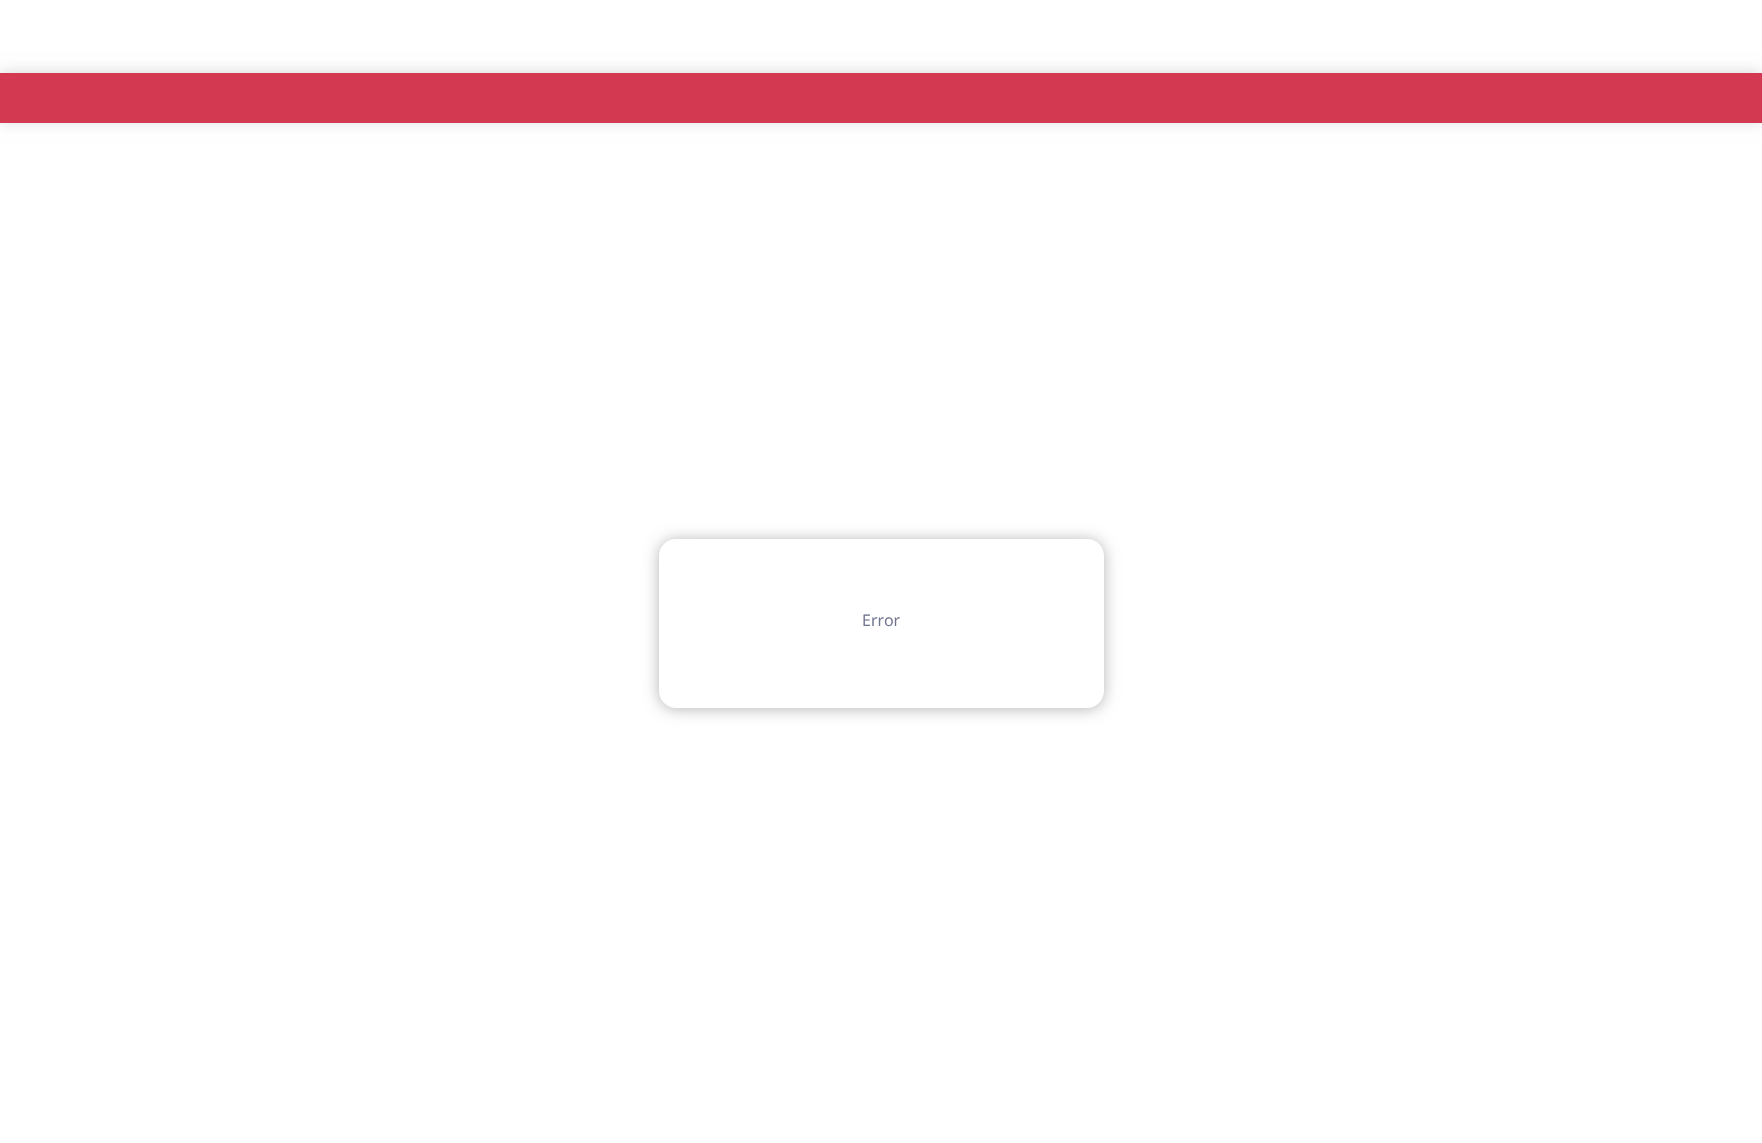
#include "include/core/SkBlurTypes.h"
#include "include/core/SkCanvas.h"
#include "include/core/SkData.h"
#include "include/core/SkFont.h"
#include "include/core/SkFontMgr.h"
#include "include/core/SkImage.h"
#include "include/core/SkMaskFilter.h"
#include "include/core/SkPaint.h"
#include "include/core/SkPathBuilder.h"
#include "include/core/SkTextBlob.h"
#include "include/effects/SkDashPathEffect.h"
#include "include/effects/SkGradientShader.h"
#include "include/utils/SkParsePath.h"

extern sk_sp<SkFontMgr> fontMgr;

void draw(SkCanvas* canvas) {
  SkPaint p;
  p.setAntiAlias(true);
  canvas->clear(SK_ColorWHITE);
  p.setColor(SkColorSetARGB(36, 0, 0, 0));
  p.setMaskFilter(SkMaskFilter::MakeBlur(kNormal_SkBlurStyle, 7));
  canvas->drawRect(SkRect::MakeLTRB(0, 72, 1762, 122), p);
  p.setMaskFilter(nullptr);
  p.setColor(SkColorSetRGB(211, 58, 81));
  canvas->drawRect(SkRect::MakeLTRB(0, 73, 1762, 123), p);
  p.setColor(SkColorSetARGB(74, 0, 0, 0));
  p.setMaskFilter(SkMaskFilter::MakeBlur(kNormal_SkBlurStyle, 7.5f));
  canvas->drawRoundRect(SkRect::MakeLTRB(659, 540, 1104, 709), 17, 17, p);
  p.setMaskFilter(nullptr);
  p.setColor(SK_ColorWHITE);
  canvas->drawRoundRect(SkRect::MakeLTRB(659, 539, 1104, 708), 17, 17, p);
  SkFont font1(fontMgr->matchFamilyStyle("Open Sans", SkFontStyle::Normal()), 16);
  font1.setSubpixel(true);
  p.setColor(SkColorSetRGB(112, 117, 143));
  canvas->drawString("Error", 862, 626, font1, p);
}
